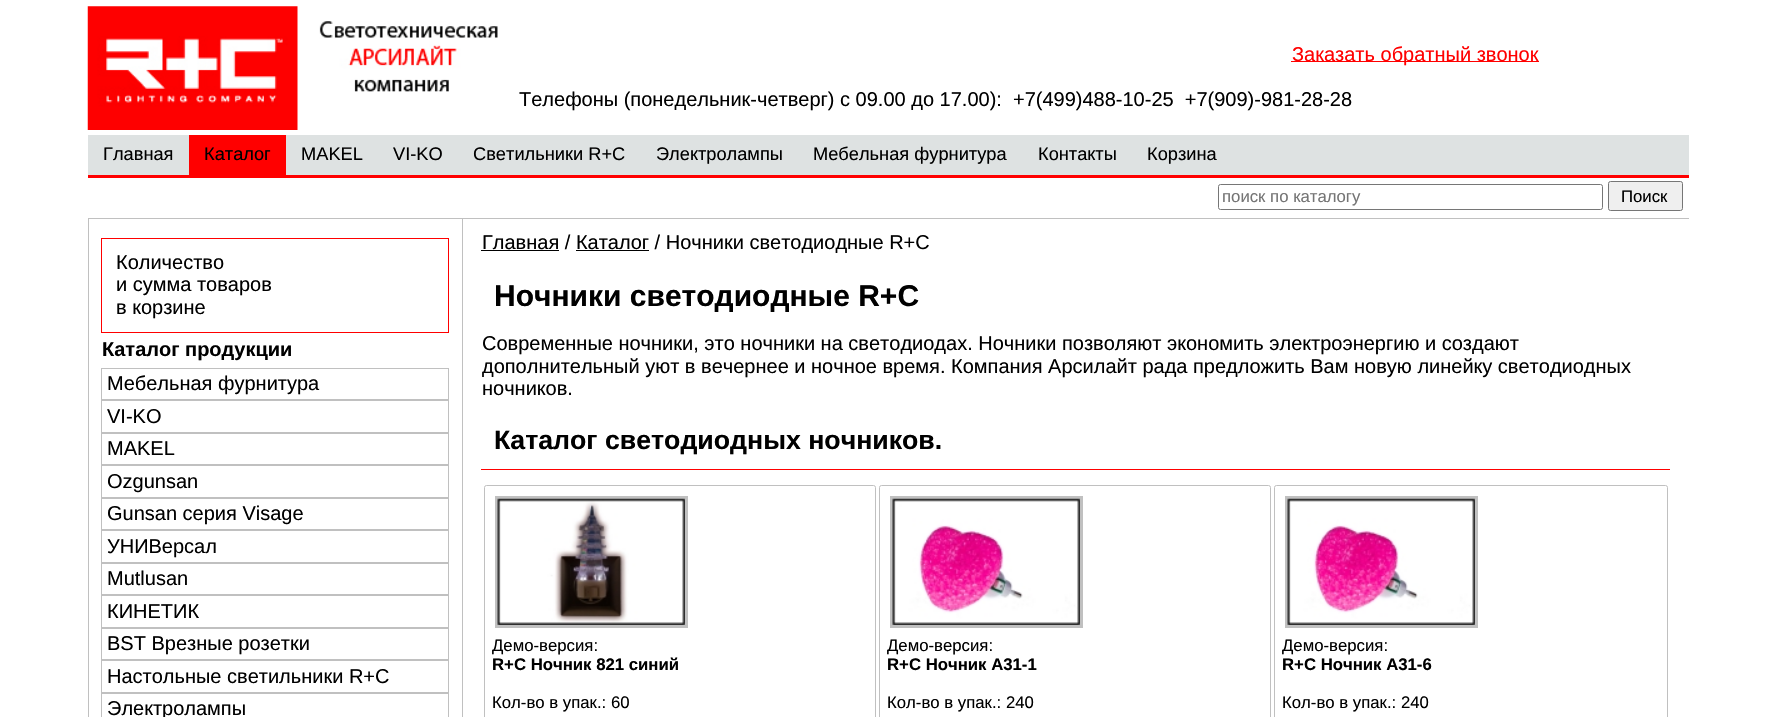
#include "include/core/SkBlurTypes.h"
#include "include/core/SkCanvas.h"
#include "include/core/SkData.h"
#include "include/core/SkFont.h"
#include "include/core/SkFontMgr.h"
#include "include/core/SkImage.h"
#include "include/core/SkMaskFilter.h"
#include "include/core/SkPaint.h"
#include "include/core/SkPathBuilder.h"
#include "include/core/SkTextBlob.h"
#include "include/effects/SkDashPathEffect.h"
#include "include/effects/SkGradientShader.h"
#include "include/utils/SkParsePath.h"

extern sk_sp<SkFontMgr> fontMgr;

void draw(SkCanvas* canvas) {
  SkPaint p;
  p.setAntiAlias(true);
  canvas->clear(SK_ColorWHITE);
  canvas->drawImageRect(SkImages::DeferredFromEncodedData(SkData::MakeFromFileName("images/1.png")), SkRect::MakeLTRB(87, 6, 298, 130), SkSamplingOptions());
  canvas->drawImageRect(SkImages::DeferredFromEncodedData(SkData::MakeFromFileName("images/2.png")), SkRect::MakeLTRB(319, 21, 498, 92), SkSamplingOptions());
  p.setColor(SkColorSetRGB(255, 0, 0));
  canvas->drawRect(SkRect::MakeLTRB(1291, 61, 1539, 62), p);
  p.setColor(SkColorSetRGB(222, 226, 226));
  canvas->drawRect(SkRect::MakeLTRB(88, 135, 1689, 175), p);
  p.setColor(SkColorSetRGB(255, 0, 0));
  canvas->drawRect(SkRect::MakeLTRB(88, 175, 1689, 178), p);
  canvas->drawRect(SkRect::MakeLTRB(189, 135, 286, 175), p);
  p.setStyle(SkPaint::kStroke_Style);
  p.setStrokeWidth(1);
  p.setColor(SkColorSetRGB(118, 118, 118));
  canvas->drawRoundRect(SkRect::MakeLTRB(1218.5f, 184.5f, 1602.5f, 209.5f), 2, 2, p);
  p.setStyle(SkPaint::kFill_Style);
  p.setColor(SkColorSetRGB(239, 239, 239));
  canvas->drawRoundRect(SkRect::MakeLTRB(1608.5f, 181.5f, 1682.5f, 210.5f), 2, 2, p);
  p.setStyle(SkPaint::kStroke_Style);
  p.setColor(SkColorSetRGB(118, 118, 118));
  canvas->drawRoundRect(SkRect::MakeLTRB(1608.5f, 181.5f, 1682.5f, 210.5f), 2, 2, p);
  p.setColor(SkColorSetRGB(192, 192, 192));
  canvas->drawRect(SkRect::MakeLTRB(88.5f, 218.5f, 462.5f, 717.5f), p);
  p.setColor(SkColorSetRGB(255, 0, 0));
  canvas->drawRect(SkRect::MakeLTRB(101.5f, 238.5f, 448.5f, 332.5f), p);
  p.setColor(SkColorSetRGB(192, 192, 192));
  canvas->drawRect(SkRect::MakeLTRB(101.5f, 368.5f, 448.5f, 399.5f), p);
  canvas->drawRect(SkRect::MakeLTRB(101.5f, 400.5f, 448.5f, 432.5f), p);
  canvas->drawRect(SkRect::MakeLTRB(101.5f, 433.5f, 448.5f, 464.5f), p);
  canvas->drawRect(SkRect::MakeLTRB(101.5f, 465.5f, 448.5f, 497.5f), p);
  canvas->drawRect(SkRect::MakeLTRB(101.5f, 498.5f, 448.5f, 529.5f), p);
  canvas->drawRect(SkRect::MakeLTRB(101.5f, 530.5f, 448.5f, 562.5f), p);
  canvas->drawRect(SkRect::MakeLTRB(101.5f, 563.5f, 448.5f, 594.5f), p);
  canvas->drawRect(SkRect::MakeLTRB(101.5f, 595.5f, 448.5f, 627.5f), p);
  canvas->drawRect(SkRect::MakeLTRB(101.5f, 628.5f, 448.5f, 659.5f), p);
  canvas->drawRect(SkRect::MakeLTRB(101.5f, 660.5f, 448.5f, 692.5f), p);
  canvas->drawRect(SkRect::MakeLTRB(101.5f, 693.5f, 448.5f, 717.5f), p);
  p.setStyle(SkPaint::kFill_Style);
  canvas->drawRect(SkRect::MakeLTRB(463, 218, 1689, 219), p);
  p.setColor(SK_ColorBLACK);
  canvas->drawRect(SkRect::MakeLTRB(481, 250, 559, 251), p);
  canvas->drawRect(SkRect::MakeLTRB(576, 250, 649, 251), p);
  p.setColor(SkColorSetRGB(255, 0, 0));
  canvas->drawRect(SkRect::MakeLTRB(481, 469, 1670, 470), p);
  p.setStyle(SkPaint::kStroke_Style);
  p.setColor(SkColorSetRGB(192, 192, 192));
  canvas->drawRoundRect(SkRect::MakeLTRB(484.5f, 485.5f, 875.5f, 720.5f), 2, 2, p);
  p.setStrokeWidth(3);
  canvas->drawRect(SkRect::MakeLTRB(496.5f, 497.5f, 686.5f, 626.5f), p);
  canvas->drawImageRect(SkImages::DeferredFromEncodedData(SkData::MakeFromFileName("images/3.png")), SkRect::MakeLTRB(497, 498, 685, 625), SkSamplingOptions());
  p.setStrokeWidth(1);
  canvas->drawRoundRect(SkRect::MakeLTRB(879.5f, 485.5f, 1270.5f, 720.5f), 2, 2, p);
  p.setStrokeWidth(3);
  canvas->drawRect(SkRect::MakeLTRB(891.5f, 497.5f, 1081.5f, 626.5f), p);
  canvas->drawImageRect(SkImages::DeferredFromEncodedData(SkData::MakeFromFileName("images/4.png")), SkRect::MakeLTRB(892, 498, 1080, 625), SkSamplingOptions());
  p.setStrokeWidth(1);
  canvas->drawRoundRect(SkRect::MakeLTRB(1274.5f, 485.5f, 1667.5f, 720.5f), 2, 2, p);
  p.setStrokeWidth(3);
  canvas->drawRect(SkRect::MakeLTRB(1286.5f, 497.5f, 1476.5f, 626.5f), p);
  canvas->drawImageRect(SkImages::DeferredFromEncodedData(SkData::MakeFromFileName("images/4.png")), SkRect::MakeLTRB(1287, 498, 1475, 625), SkSamplingOptions());
  SkFont font1(fontMgr->matchFamilyStyle("Liberation Sans", SkFontStyle::Normal()), 20);
  font1.setSubpixel(true);
  p.setStyle(SkPaint::kFill_Style);
  p.setColor(SkColorSetRGB(255, 0, 0));
  canvas->drawString("Заказать обратный звонок", 1292, 61, font1, p);
  p.setColor(SK_ColorBLACK);
  canvas->drawString("Телефоны (понедельник-четверг) с 09.00 до 17.00):  +7(499)488-10-25  +7(909)-981-28-28", 519, 106, font1, p);
  SkFont font2(fontMgr->matchFamilyStyle("Liberation Sans", SkFontStyle::Normal()), 18.25f);
  font2.setSubpixel(true);
  canvas->drawString("Главная", 103, 160, font2, p);
  canvas->drawString("Каталог", 204, 160, font2, p);
  canvas->drawString("MAKEL", 301, 160, font2, p);
  canvas->drawString("VI-KO", 393, 160, font2, p);
  canvas->drawString("Светильники R+C", 473, 160, font2, p);
  canvas->drawString("Электролампы", 656, 160, font2, p);
  canvas->drawString("Мебельная фурнитура", 813, 160, font2, p);
  canvas->drawString("Контакты", 1038, 160, font2, p);
  canvas->drawString("Корзина", 1147, 160, font2, p);
  SkFont font3(fontMgr->matchFamilyStyle("Liberation Sans", SkFontStyle::Normal()), 16.75f);
  font3.setSubpixel(true);
  p.setColor(SkColorSetRGB(117, 117, 117));
  canvas->drawString("поиск по каталогу", 1222, 202, font3, p);
  p.setColor(SK_ColorBLACK);
  canvas->drawString("Поиск", 1621, 202, font3, p);
  canvas->drawString("Количество", 116, 269, font1, p);
  canvas->drawString("и сумма товаров", 116, 291, font1, p);
  canvas->drawString("в корзине", 116, 314, font1, p);
  SkFont font4(fontMgr->matchFamilyStyle("Liberation Sans", SkFontStyle::Bold()), 20);
  font4.setSubpixel(true);
  canvas->drawString("Каталог продукции", 102, 356, font4, p);
  canvas->drawString("Мебельная фурнитура", 107, 390, font1, p);
  canvas->drawString("VI-KO", 107, 423, font1, p);
  canvas->drawString("MAKEL", 107, 455, font1, p);
  canvas->drawString("Ozgunsan", 107, 488, font1, p);
  canvas->drawString("Gunsan серия Visage", 107, 520, font1, p);
  canvas->drawString("УНИВерсал", 107, 553, font1, p);
  canvas->drawString("Mutlusan", 107, 585, font1, p);
  canvas->drawString("КИНЕТИК", 107, 618, font1, p);
  canvas->drawString("BST Врезные розетки", 107, 650, font1, p);
  canvas->drawString("Настольные светильники R+C", 107, 683, font1, p);
  canvas->drawString("Электролампы", 107, 715, font1, p);
  canvas->drawString("Главная / Каталог / Ночники светодиодные R+C", 482, 249, font1, p);
  SkFont font5(fontMgr->matchFamilyStyle("Liberation Sans", SkFontStyle::Bold()), 30);
  font5.setSubpixel(true);
  canvas->drawString("Ночники светодиодные R+C", 494, 306, font5, p);
  canvas->drawString("Современные ночники, это ночники на светодиодах. Ночники позволяют экономить электроэнергию и создают", 482, 350, font1, p);
  canvas->drawString("дополнительный уют в вечернее и ночное время. Компания Арсилайт рада предложить Вам новую линейку светодиодных", 482, 373, font1, p);
  canvas->drawString("ночников.", 482, 395, font1, p);
  SkFont font6(fontMgr->matchFamilyStyle("Liberation Sans", SkFontStyle::Bold()), 26.7f);
  font6.setSubpixel(true);
  canvas->drawString("Каталог светодиодных ночников.", 494, 449, font6, p);
  canvas->drawString("Демо-версия:", 492, 651, font3, p);
  SkFont font7(fontMgr->matchFamilyStyle("Liberation Sans", SkFontStyle::Bold()), 16.75f);
  font7.setSubpixel(true);
  canvas->drawString("R+C Ночник 821 синий", 492, 670, font7, p);
  canvas->drawString("Кол-во в упак.: 60", 492, 708, font3, p);
  canvas->drawString("Демо-версия:", 887, 651, font3, p);
  canvas->drawString("R+C Ночник A31-1", 887, 670, font7, p);
  canvas->drawString("Кол-во в упак.: 240", 887, 708, font3, p);
  canvas->drawString("Демо-версия:", 1282, 651, font3, p);
  canvas->drawString("R+C Ночник A31-6", 1282, 670, font7, p);
  canvas->drawString("Кол-во в упак.: 240", 1282, 708, font3, p);
}
